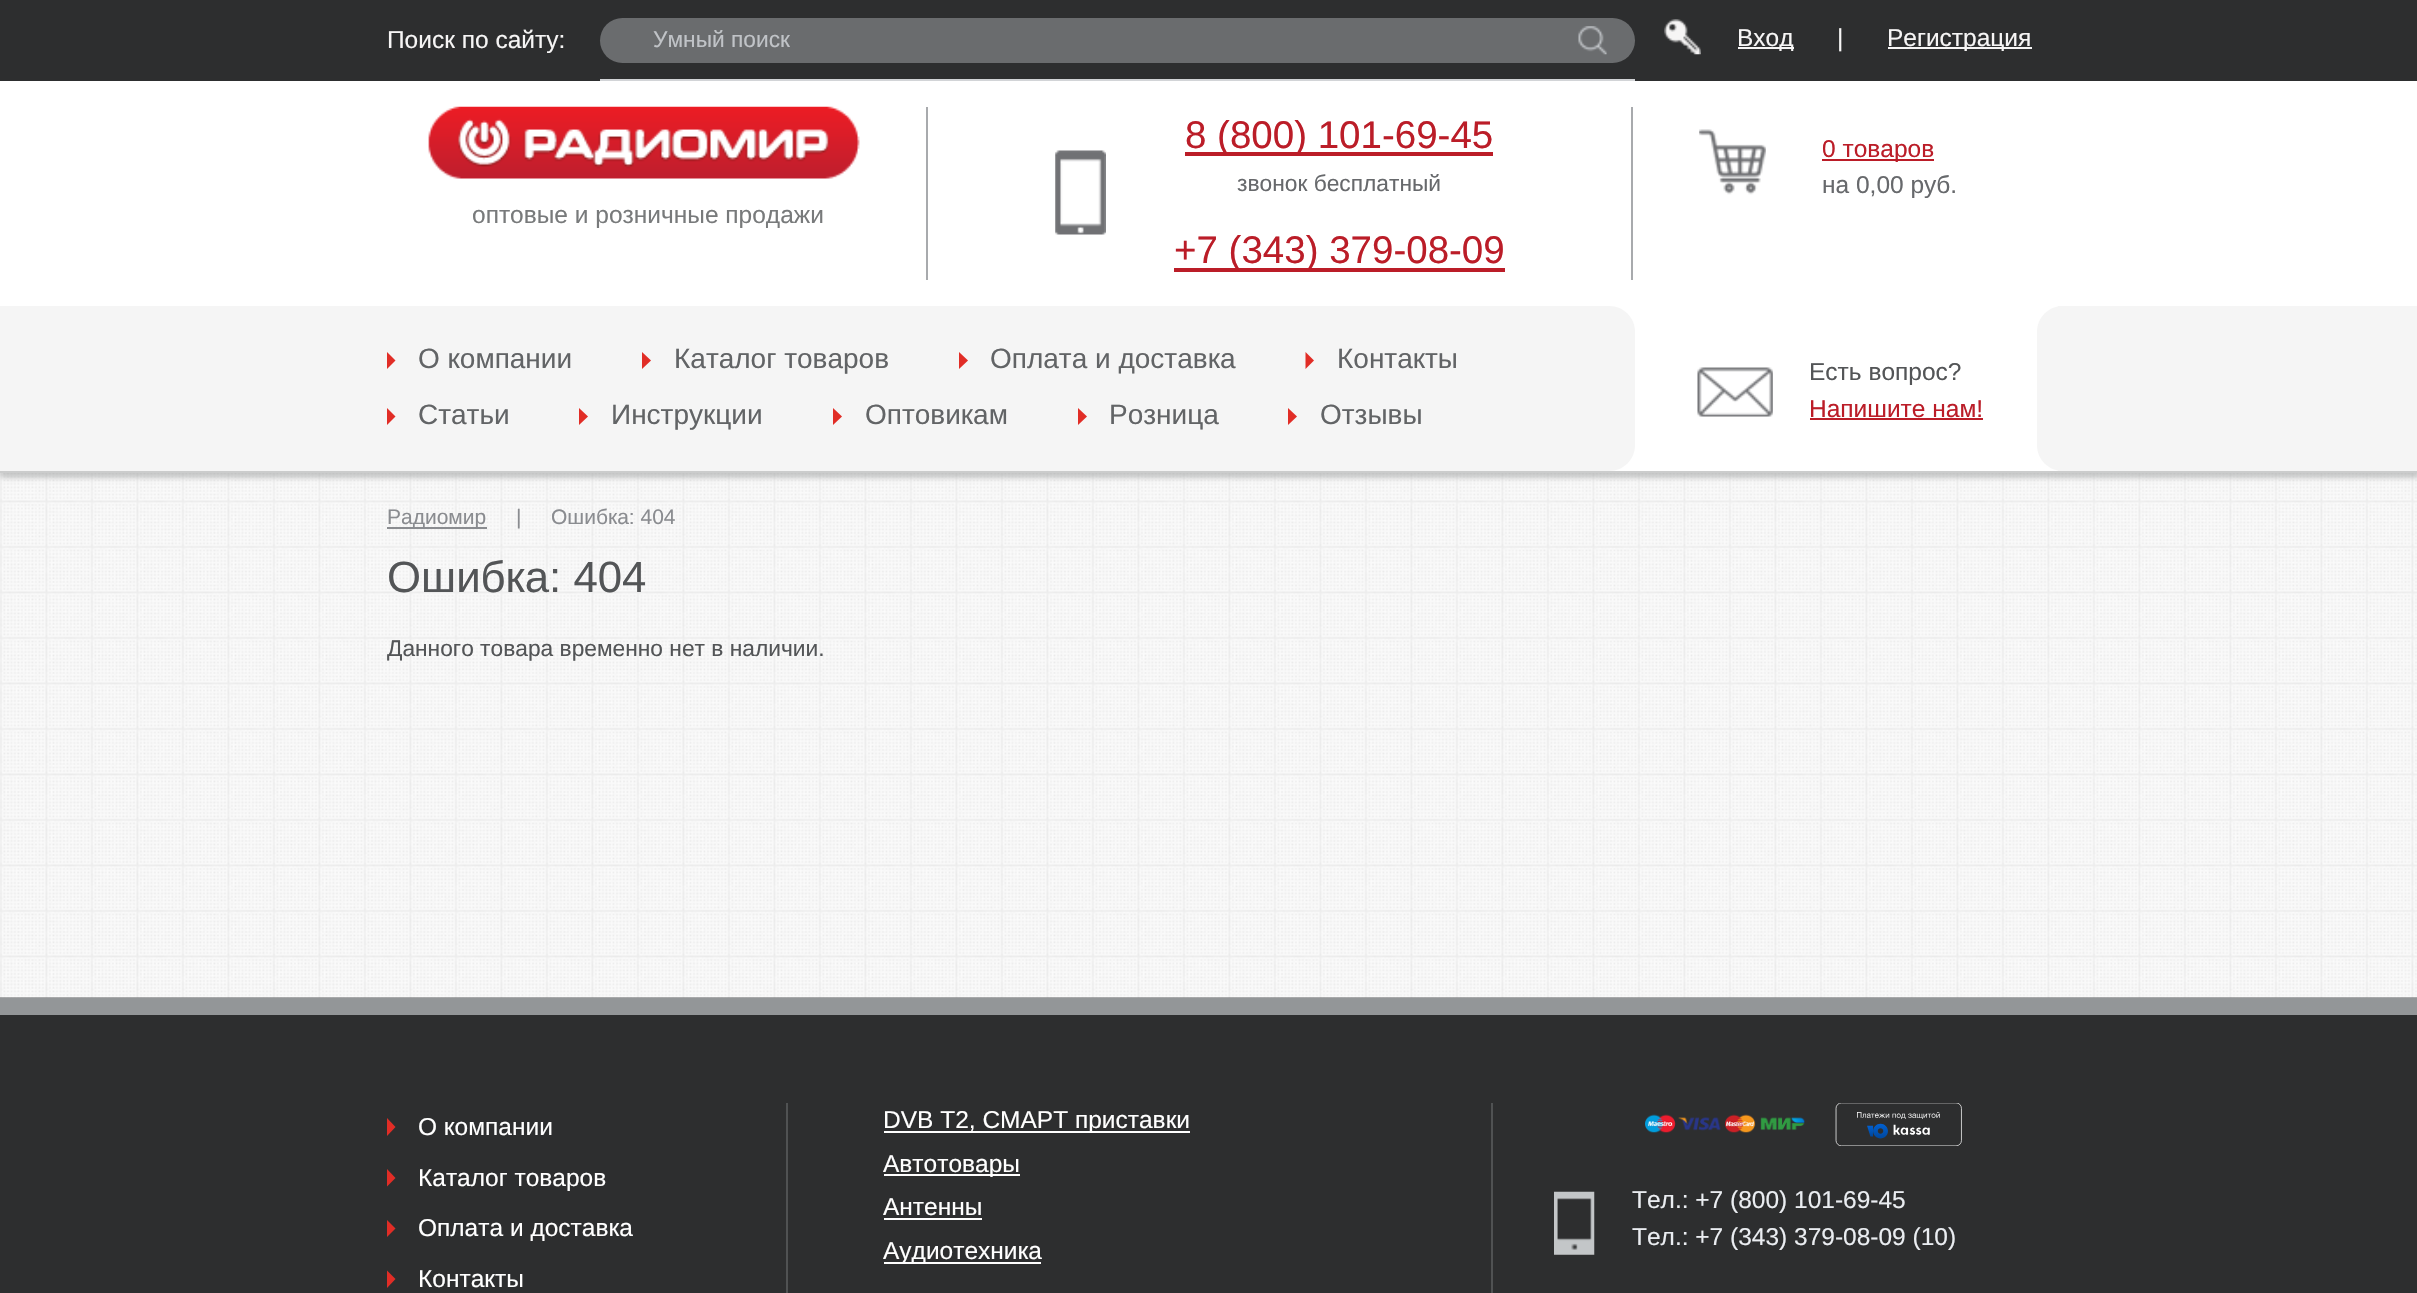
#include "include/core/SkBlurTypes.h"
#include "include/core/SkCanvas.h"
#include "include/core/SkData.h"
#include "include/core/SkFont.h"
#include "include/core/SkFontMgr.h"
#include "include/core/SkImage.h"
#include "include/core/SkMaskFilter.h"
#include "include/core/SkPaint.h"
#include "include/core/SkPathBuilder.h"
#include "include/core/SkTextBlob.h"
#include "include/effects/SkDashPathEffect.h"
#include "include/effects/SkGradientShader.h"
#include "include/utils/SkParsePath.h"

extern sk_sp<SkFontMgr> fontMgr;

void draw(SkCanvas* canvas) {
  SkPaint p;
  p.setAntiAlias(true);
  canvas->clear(SK_ColorWHITE);
  canvas->drawImageRect(SkImages::DeferredFromEncodedData(SkData::MakeFromFileName("images/1.png")), SkRect::MakeLTRB(0, 473, 2417, 998), SkSamplingOptions());
  p.setColor(SkColorSetRGB(45, 46, 47));
  canvas->drawRect(SkRect::MakeLTRB(0, 0, 2417, 81), p);
  p.setColor(SkColorSetRGB(106, 108, 110));
  canvas->drawRoundRect(SkRect::MakeLTRB(600, 18, 1635, 63), 22.5f, 22.5f, p);
  canvas->drawImageRect(SkImages::DeferredFromEncodedData(SkData::MakeFromFileName("images/2.png")), SkRect::MakeLTRB(1578, 26, 1607, 55), SkSamplingOptions());
  p.setColor(SkColorSetRGB(210, 212, 215));
  canvas->drawRect(SkRect::MakeLTRB(600, 79, 1635, 81), p);
  canvas->drawImageRect(SkImages::DeferredFromEncodedData(SkData::MakeFromFileName("images/3.png")), SkRect::MakeLTRB(1664, 19, 1701, 55), SkSamplingOptions());
  p.setColor(SkColorSetRGB(246, 245, 245));
  canvas->drawRect(SkRect::MakeLTRB(1738, 47, 1794, 49), p);
  canvas->drawRect(SkRect::MakeLTRB(1888, 47, 2032, 49), p);
  p.setColor(SkColorSetRGB(168, 170, 173));
  canvas->drawRect(SkRect::MakeLTRB(1631, 107, 1633, 280), p);
  canvas->drawRect(SkRect::MakeLTRB(926, 107, 928, 280), p);
  canvas->drawImageRect(SkImages::DeferredFromEncodedData(SkData::MakeFromFileName("images/4.png")), SkRect::MakeLTRB(1055, 150, 1106, 235), SkSamplingOptions());
  p.setColor(SkColorSetRGB(187, 29, 40));
  canvas->drawRect(SkRect::MakeLTRB(1185, 152, 1493, 156), p);
  canvas->drawRect(SkRect::MakeLTRB(1174, 268, 1505, 272), p);
  canvas->drawImageRect(SkImages::DeferredFromEncodedData(SkData::MakeFromFileName("images/5.png")), SkRect::MakeLTRB(1699, 129, 1766, 195), SkSamplingOptions());
  canvas->drawRect(SkRect::MakeLTRB(1822, 159, 1934, 161), p);
  canvas->drawImageRect(SkImages::DeferredFromEncodedData(SkData::MakeFromFileName("images/6.png")), SkRect::MakeLTRB(428, 106, 860, 179), SkSamplingOptions());
  p.setColor(SkColorSetARGB(153, 165, 167, 167));
  p.setMaskFilter(SkMaskFilter::MakeBlur(kNormal_SkBlurStyle, 2.5f));
  canvas->drawRect(SkRect::MakeLTRB(0, 312, 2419, 478), p);
  p.setMaskFilter(nullptr);
  p.setColor(SkColorSetRGB(245, 245, 245));
  canvas->drawRect(SkRect::MakeLTRB(0, 306, 2417, 471), p);
  p.setColor(SkColorSetRGB(203, 204, 204));
  canvas->drawRect(SkRect::MakeLTRB(0, 471, 2417, 473), p);
  p.setColor(SK_ColorWHITE);
  canvas->drawRect(SkRect::MakeLTRB(1609, 306, 2058, 471), p);
  p.setColor(SkColorSetRGB(245, 245, 245));
  canvas->drawPath(SkPathBuilder().moveTo(361, 306).lineTo(1609, 306).cubicTo(1623.5f, 306, 1635, 317.5f, 1635, 332).lineTo(1635, 445).cubicTo(1635, 459.5f, 1623.5f, 471, 1609, 471).lineTo(361, 471).close().detach(), p);
  p.setColor(SkColorSetRGB(225, 45, 38));
  canvas->drawPath(SkPathBuilder().moveTo(387, 369).lineTo(387, 352).lineTo(395.5f, 360.5f).close().detach(), p);
  canvas->drawPath(SkPathBuilder().moveTo(642, 369).lineTo(642, 352).lineTo(651, 360.5f).close().detach(), p);
  canvas->drawPath(SkPathBuilder().moveTo(959, 369).lineTo(959, 352).lineTo(968, 360.5f).close().detach(), p);
  canvas->drawPath(SkPathBuilder().moveTo(1305.5f, 369).lineTo(1305.5f, 352).lineTo(1314, 360.5f).close().detach(), p);
  canvas->drawPath(SkPathBuilder().moveTo(387, 425).lineTo(387, 408).lineTo(395.5f, 416.5f).close().detach(), p);
  canvas->drawPath(SkPathBuilder().moveTo(579, 425).lineTo(579, 408).lineTo(588, 416.5f).close().detach(), p);
  canvas->drawPath(SkPathBuilder().moveTo(833, 425).lineTo(833, 408).lineTo(842, 416.5f).close().detach(), p);
  canvas->drawPath(SkPathBuilder().moveTo(1078, 425).lineTo(1078, 408).lineTo(1087, 416.5f).close().detach(), p);
  canvas->drawPath(SkPathBuilder().moveTo(1288, 425).lineTo(1288, 408).lineTo(1297, 416.5f).close().detach(), p);
  canvas->drawImageRect(SkImages::DeferredFromEncodedData(SkData::MakeFromFileName("images/7.png")), SkRect::MakeLTRB(1697, 367, 1773, 417), SkSamplingOptions());
  p.setColor(SkColorSetRGB(187, 29, 40));
  canvas->drawRect(SkRect::MakeLTRB(1810, 418, 1983, 420), p);
  p.setColor(SkColorSetRGB(245, 245, 245));
  canvas->drawPath(SkPathBuilder().moveTo(2063, 306).lineTo(2063, 471).cubicTo(2048.5f, 471, 2037, 459.5f, 2037, 445).lineTo(2037, 332).cubicTo(2037, 317.5f, 2048.5f, 306, 2063, 306).close().detach(), p);
  p.setColor(SkColorSetRGB(138, 140, 144));
  canvas->drawRect(SkRect::MakeLTRB(387, 527, 487, 529), p);
  canvas->drawImageRect(SkImages::DeferredFromEncodedData(SkData::MakeFromFileName("images/8.png")), SkRect::MakeLTRB(0, 997, 2417, 998), SkSamplingOptions());
  p.setColor(SkColorSetRGB(147, 150, 152));
  canvas->drawRect(SkRect::MakeLTRB(0, 998, 2417, 1015), p);
  p.setColor(SkColorSetRGB(45, 46, 47));
  canvas->drawRect(SkRect::MakeLTRB(0, 1015, 2417, 1293), p);
  p.setColor(SkColorSetRGB(225, 45, 38));
  canvas->drawPath(SkPathBuilder().moveTo(387, 1136).lineTo(387, 1118).lineTo(395.5f, 1127).close().detach(), p);
  canvas->drawPath(SkPathBuilder().moveTo(387, 1186.5f).lineTo(387, 1169).lineTo(395.5f, 1178).close().detach(), p);
  canvas->drawPath(SkPathBuilder().moveTo(387, 1237).lineTo(387, 1220).lineTo(395.5f, 1228.5f).close().detach(), p);
  canvas->drawPath(SkPathBuilder().moveTo(387, 1288).lineTo(387, 1270.5f).lineTo(395.5f, 1279).close().detach(), p);
  p.setColor(SkColorSetRGB(80, 82, 83));
  canvas->drawRect(SkRect::MakeLTRB(1491, 1103, 1493, 1293), p);
  canvas->drawRect(SkRect::MakeLTRB(786, 1103, 788, 1293), p);
  p.setColor(SK_ColorWHITE);
  canvas->drawRect(SkRect::MakeLTRB(884, 1131, 1190, 1133), p);
  canvas->drawRect(SkRect::MakeLTRB(884, 1174, 1020, 1176), p);
  canvas->drawRect(SkRect::MakeLTRB(884, 1218, 982, 1220), p);
  canvas->drawRect(SkRect::MakeLTRB(884, 1262, 1041, 1264), p);
  canvas->drawImageRect(SkImages::DeferredFromEncodedData(SkData::MakeFromFileName("images/9.png")), SkRect::MakeLTRB(1554, 1191, 1595, 1255), SkSamplingOptions());
  canvas->drawImageRect(SkImages::DeferredFromEncodedData(SkData::MakeFromFileName("images/10.png")), SkRect::MakeLTRB(1645, 1114, 1805, 1133), SkSamplingOptions());
  canvas->drawImageRect(SkImages::DeferredFromEncodedData(SkData::MakeFromFileName("images/11.png")), SkRect::MakeLTRB(1835, 1103, 1962, 1146), SkSamplingOptions());
  SkFont font1(fontMgr->matchFamilyStyle("Liberation Sans", SkFontStyle::Normal()), 24.5f);
  font1.setSubpixel(true);
  p.setColor(SkColorSetRGB(246, 245, 245));
  canvas->drawString("Поиск по сайту:", 387, 48, font1, p);
  SkFont font2(fontMgr->matchFamilyStyle("Liberation Sans", SkFontStyle::Normal()), 22.75f);
  font2.setSubpixel(true);
  p.setColor(SkColorSetRGB(192, 195, 199));
  canvas->drawString("Умный поиск", 653, 47, font2, p);
  p.setColor(SkColorSetRGB(246, 245, 245));
  canvas->drawString("Вход", 1737, 46, font1, p);
  canvas->drawString("|", 1837, 46, font1, p);
  canvas->drawString("Регистрация", 1887, 46, font1, p);
  SkFont font3(fontMgr->matchFamilyStyle("Liberation Sans", SkFontStyle::Normal()), 38.5f);
  font3.setSubpixel(true);
  p.setColor(SkColorSetRGB(187, 29, 40));
  canvas->drawString("8 (800) 101-69-45", 1185, 148, font3, p);
  p.setColor(SkColorSetRGB(103, 105, 108));
  canvas->drawString("звонок бесплатный", 1237, 191, font2, p);
  p.setColor(SkColorSetRGB(187, 29, 40));
  canvas->drawString("+7 (343) 379-08-09", 1174, 263, font3, p);
  canvas->drawString("0 товаров", 1822, 157, font1, p);
  p.setColor(SkColorSetRGB(103, 105, 108));
  canvas->drawString("на 0,00 руб.", 1822, 193, font1, p);
  p.setColor(SkColorSetRGB(120, 122, 123));
  canvas->drawString("оптовые и розничные продажи", 472, 223, font1, p);
  SkFont font4(fontMgr->matchFamilyStyle("Liberation Sans", SkFontStyle::Normal()), 28);
  font4.setSubpixel(true);
  p.setColor(SkColorSetRGB(98, 100, 102));
  canvas->drawString("О компании", 418, 368, font4, p);
  canvas->drawString("Каталог товаров", 674, 368, font4, p);
  canvas->drawString("Оплата и доставка", 990, 368, font4, p);
  canvas->drawString("Контакты", 1337, 368, font4, p);
  canvas->drawString("Статьи", 418, 424, font4, p);
  canvas->drawString("Инструкции", 611, 424, font4, p);
  canvas->drawString("Оптовикам", 865, 424, font4, p);
  canvas->drawString("Розница", 1109, 424, font4, p);
  canvas->drawString("Отзывы", 1320, 424, font4, p);
  p.setColor(SkColorSetRGB(83, 85, 87));
  canvas->drawString("Есть вопрос?", 1809, 380, font1, p);
  p.setColor(SkColorSetRGB(187, 29, 40));
  canvas->drawString("Напишите нам!", 1809, 417, font1, p);
  SkFont font5(fontMgr->matchFamilyStyle("Liberation Sans", SkFontStyle::Normal()), 21);
  font5.setSubpixel(true);
  p.setColor(SkColorSetRGB(138, 140, 144));
  canvas->drawString("Радиомир", 387, 524, font5, p);
  canvas->drawString("|", 516, 524, font5, p);
  canvas->drawString("Ошибка: 404", 551, 524, font5, p);
  SkFont font6(fontMgr->matchFamilyStyle("Liberation Sans", SkFontStyle::Normal()), 43.75f);
  font6.setSubpixel(true);
  p.setColor(SkColorSetRGB(83, 85, 87));
  canvas->drawString("Ошибка: 404", 387, 592, font6, p);
  canvas->drawString("Данного товара временно нет в наличии.", 387, 656, font2, p);
  p.setColor(SK_ColorWHITE);
  canvas->drawString("О компании", 418, 1135, font1, p);
  canvas->drawString("Каталог товаров", 418, 1186, font1, p);
  canvas->drawString("Оплата и доставка", 418, 1236, font1, p);
  canvas->drawString("Контакты", 418, 1287, font1, p);
  canvas->drawString("DVB T2, СМАРТ приставки", 883, 1128, font1, p);
  canvas->drawString("Автотовары", 883, 1172, font1, p);
  canvas->drawString("Антенны", 883, 1215, font1, p);
  canvas->drawString("Аудиотехника", 883, 1259, font1, p);
  p.setColor(SkColorSetRGB(234, 237, 241));
  canvas->drawString("Тел.: +7 (800) 101-69-45", 1632, 1208, font1, p);
  canvas->drawString("Тел.: +7 (343) 379-08-09 (10)", 1632, 1245, font1, p);
}
